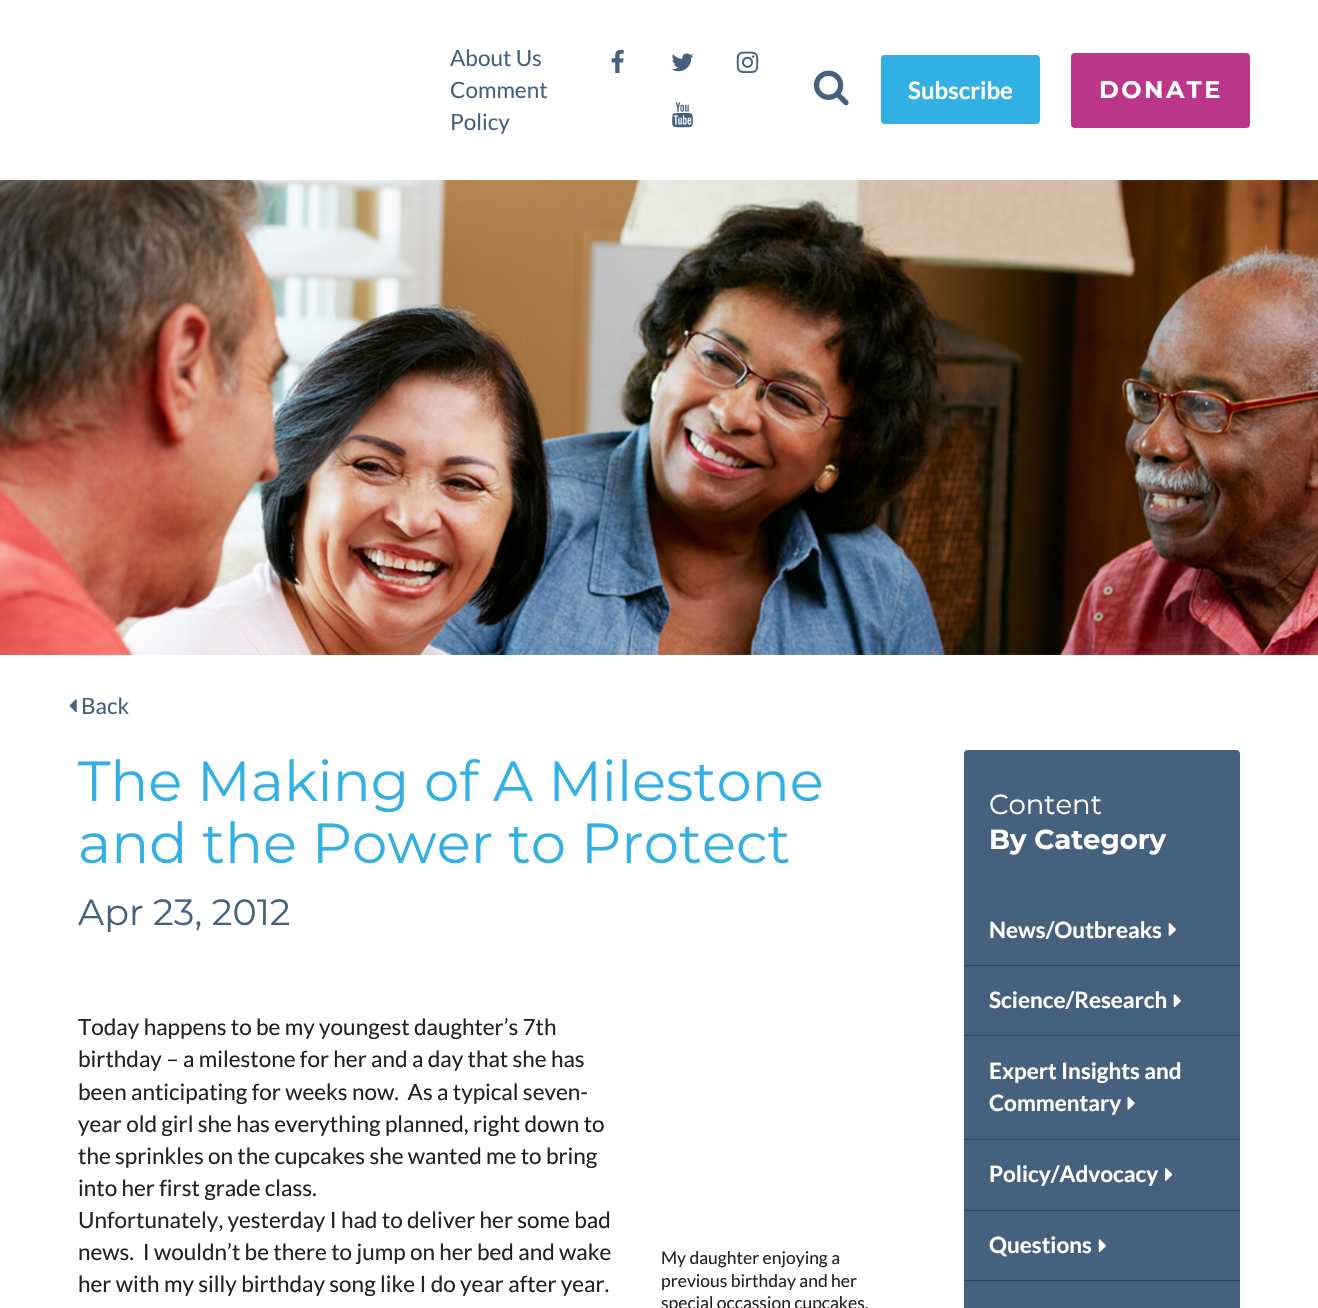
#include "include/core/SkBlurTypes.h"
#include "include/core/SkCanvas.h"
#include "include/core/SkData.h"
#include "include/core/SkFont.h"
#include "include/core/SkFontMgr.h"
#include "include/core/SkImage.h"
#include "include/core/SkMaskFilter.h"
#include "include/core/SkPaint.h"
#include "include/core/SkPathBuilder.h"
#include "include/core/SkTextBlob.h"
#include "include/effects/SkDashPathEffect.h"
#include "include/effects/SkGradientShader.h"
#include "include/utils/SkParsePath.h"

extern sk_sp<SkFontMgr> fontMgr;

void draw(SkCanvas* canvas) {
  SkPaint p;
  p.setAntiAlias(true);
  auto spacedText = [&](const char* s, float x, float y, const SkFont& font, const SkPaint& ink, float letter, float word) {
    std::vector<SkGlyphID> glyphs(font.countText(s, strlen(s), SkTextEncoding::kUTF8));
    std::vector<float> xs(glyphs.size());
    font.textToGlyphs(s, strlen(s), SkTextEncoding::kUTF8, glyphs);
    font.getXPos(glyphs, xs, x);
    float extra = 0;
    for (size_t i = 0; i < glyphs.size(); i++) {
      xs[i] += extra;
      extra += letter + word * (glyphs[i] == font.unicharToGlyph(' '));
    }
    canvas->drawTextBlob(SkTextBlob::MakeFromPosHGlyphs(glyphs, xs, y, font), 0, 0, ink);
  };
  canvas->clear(SK_ColorWHITE);
  canvas->drawImageRect(SkImages::DeferredFromEncodedData(SkData::MakeFromFileName("images/1.png")), SkRect::MakeLTRB(611, 49, 624, 74), SkSamplingOptions());
  canvas->drawImageRect(SkImages::DeferredFromEncodedData(SkData::MakeFromFileName("images/2.png")), SkRect::MakeLTRB(671, 53, 694, 72), SkSamplingOptions());
  canvas->drawImageRect(SkImages::DeferredFromEncodedData(SkData::MakeFromFileName("images/3.png")), SkRect::MakeLTRB(736, 51, 759, 73), SkSamplingOptions());
  canvas->drawImageRect(SkImages::DeferredFromEncodedData(SkData::MakeFromFileName("images/4.png")), SkRect::MakeLTRB(672, 102, 693, 128), SkSamplingOptions());
  canvas->drawImageRect(SkImages::DeferredFromEncodedData(SkData::MakeFromFileName("images/5.png")), SkRect::MakeLTRB(813, 70, 849, 106), SkSamplingOptions());
  p.setColor(SkColorSetRGB(50, 175, 227));
  canvas->drawRoundRect(SkRect::MakeLTRB(881, 55, 1040, 124), 4, 4, p);
  p.setColor(SkColorSetRGB(188, 54, 137));
  canvas->drawRoundRect(SkRect::MakeLTRB(1071, 53, 1250, 128), 4, 4, p);
  canvas->drawImageRect(SkImages::DeferredFromEncodedData(SkData::MakeFromFileName("images/6.png")), SkRect::MakeLTRB(0, 180, 1318, 655), SkSamplingOptions());
  canvas->drawImageRect(SkImages::DeferredFromEncodedData(SkData::MakeFromFileName("images/7.png")), SkRect::MakeLTRB(69, 699, 77, 713), SkSamplingOptions());
  p.setColor(SkColorSetRGB(69, 97, 125));
  canvas->drawRoundRect(SkRect::MakeLTRB(964, 750, 1240, 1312), 4, 4, p);
  p.setColor(SkColorSetRGB(51, 72, 92));
  canvas->drawRect(SkRect::MakeLTRB(964, 965, 1240, 966), p);
  canvas->drawImageRect(SkImages::DeferredFromEncodedData(SkData::MakeFromFileName("images/8.png")), SkRect::MakeLTRB(1168, 923, 1176, 936), SkSamplingOptions());
  canvas->drawRect(SkRect::MakeLTRB(964, 1035, 1240, 1036), p);
  canvas->drawImageRect(SkImages::DeferredFromEncodedData(SkData::MakeFromFileName("images/9.png")), SkRect::MakeLTRB(1173, 994, 1181, 1008), SkSamplingOptions());
  canvas->drawRect(SkRect::MakeLTRB(964, 1139, 1240, 1140), p);
  canvas->drawImageRect(SkImages::DeferredFromEncodedData(SkData::MakeFromFileName("images/10.png")), SkRect::MakeLTRB(1127, 1096, 1135, 1110), SkSamplingOptions());
  canvas->drawRect(SkRect::MakeLTRB(964, 1210, 1240, 1211), p);
  canvas->drawImageRect(SkImages::DeferredFromEncodedData(SkData::MakeFromFileName("images/11.png")), SkRect::MakeLTRB(1165, 1168, 1173, 1181), SkSamplingOptions());
  canvas->drawRect(SkRect::MakeLTRB(964, 1280, 1240, 1281), p);
  canvas->drawImageRect(SkImages::DeferredFromEncodedData(SkData::MakeFromFileName("images/9.png")), SkRect::MakeLTRB(1098, 1239, 1106, 1253), SkSamplingOptions());
  SkFont font1(fontMgr->matchFamilyStyle("Lato", SkFontStyle::Normal()), 22.5f);
  font1.setSubpixel(true);
  p.setColor(SkColorSetRGB(69, 97, 125));
  canvas->drawString("About Us", 450, 66, font1, p);
  canvas->drawString("Comment", 450, 98, font1, p);
  canvas->drawString("Policy", 450, 130, font1, p);
  SkFont font2(fontMgr->matchFamilyStyle("Lato", SkFontStyle::Bold()), 24);
  font2.setSubpixel(true);
  p.setColor(SK_ColorWHITE);
  canvas->drawString("Subscribe", 908, 99, font2, p);
  SkFont font3(fontMgr->matchFamilyStyle("Montserrat", SkFontStyle::Bold()), 24);
  font3.setSubpixel(true);
  spacedText("DONATE", 1099, 98, font3, p, 2.5f, 0);
  p.setColor(SkColorSetRGB(69, 97, 125));
  canvas->drawString("Back", 81, 714, font1, p);
  SkFont font4(fontMgr->matchFamilyStyle("Montserrat", SkFontStyle::Normal()), 56.25f);
  font4.setSubpixel(true);
  p.setColor(SkColorSetRGB(50, 175, 227));
  canvas->drawString("The Making of A Milestone", 78, 801, font4, p);
  canvas->drawString("and the Power to Protect", 78, 863, font4, p);
  SkFont font5(fontMgr->matchFamilyStyle("Montserrat", SkFontStyle::Normal()), 36.5f);
  font5.setSubpixel(true);
  p.setColor(SkColorSetRGB(69, 97, 125));
  canvas->drawString("Apr 23, 2012", 78, 925, font5, p);
  p.setColor(SkColorSetRGB(34, 34, 34));
  canvas->drawString("Today happens to be my youngest daughter’s 7th", 78, 1035, font1, p);
  canvas->drawString("birthday – a milestone for her and a day that she has", 78, 1067, font1, p);
  canvas->drawString("been anticipating for weeks now.  As a typical seven-", 78, 1100, font1, p);
  canvas->drawString("year old girl she has everything planned, right down to", 78, 1132, font1, p);
  canvas->drawString("the sprinkles on the cupcakes she wanted me to bring", 78, 1164, font1, p);
  canvas->drawString("into her first grade class.", 78, 1196, font1, p);
  canvas->drawString("Unfortunately, yesterday I had to deliver her some bad", 78, 1228, font1, p);
  canvas->drawString("news.  I wouldn’t be there to jump on her bed and wake", 78, 1260, font1, p);
  SkFont font6(fontMgr->matchFamilyStyle("Lato", SkFontStyle::Normal()), 17.5f);
  font6.setSubpixel(true);
  canvas->drawString("My daughter enjoying a", 661, 1264, font6, p);
  canvas->drawString("previous birthday and her", 661, 1287, font6, p);
  canvas->drawString("special occassion cupcakes.", 661, 1309, font6, p);
  canvas->drawString("her with my silly birthday song like I do year after year.", 78, 1292, font1, p);
  SkFont font7(fontMgr->matchFamilyStyle("Montserrat", SkFontStyle::Normal()), 27.5f);
  font7.setSubpixel(true);
  p.setColor(SK_ColorWHITE);
  canvas->drawString("Content", 989, 814, font7, p);
  SkFont font8(fontMgr->matchFamilyStyle("Montserrat", SkFontStyle::Bold()), 27.5f);
  font8.setSubpixel(true);
  canvas->drawString("By Category", 989, 849, font8, p);
  SkFont font9(fontMgr->matchFamilyStyle("Lato", SkFontStyle::Bold()), 22.5f);
  font9.setSubpixel(true);
  canvas->drawString("News/Outbreaks", 989, 938, font9, p);
  canvas->drawString("Science/Research", 989, 1008, font9, p);
  canvas->drawString("Expert Insights and", 989, 1079, font9, p);
  canvas->drawString("Commentary", 989, 1111, font9, p);
  canvas->drawString("Policy/Advocacy", 989, 1182, font9, p);
  canvas->drawString("Questions", 989, 1253, font9, p);
}
